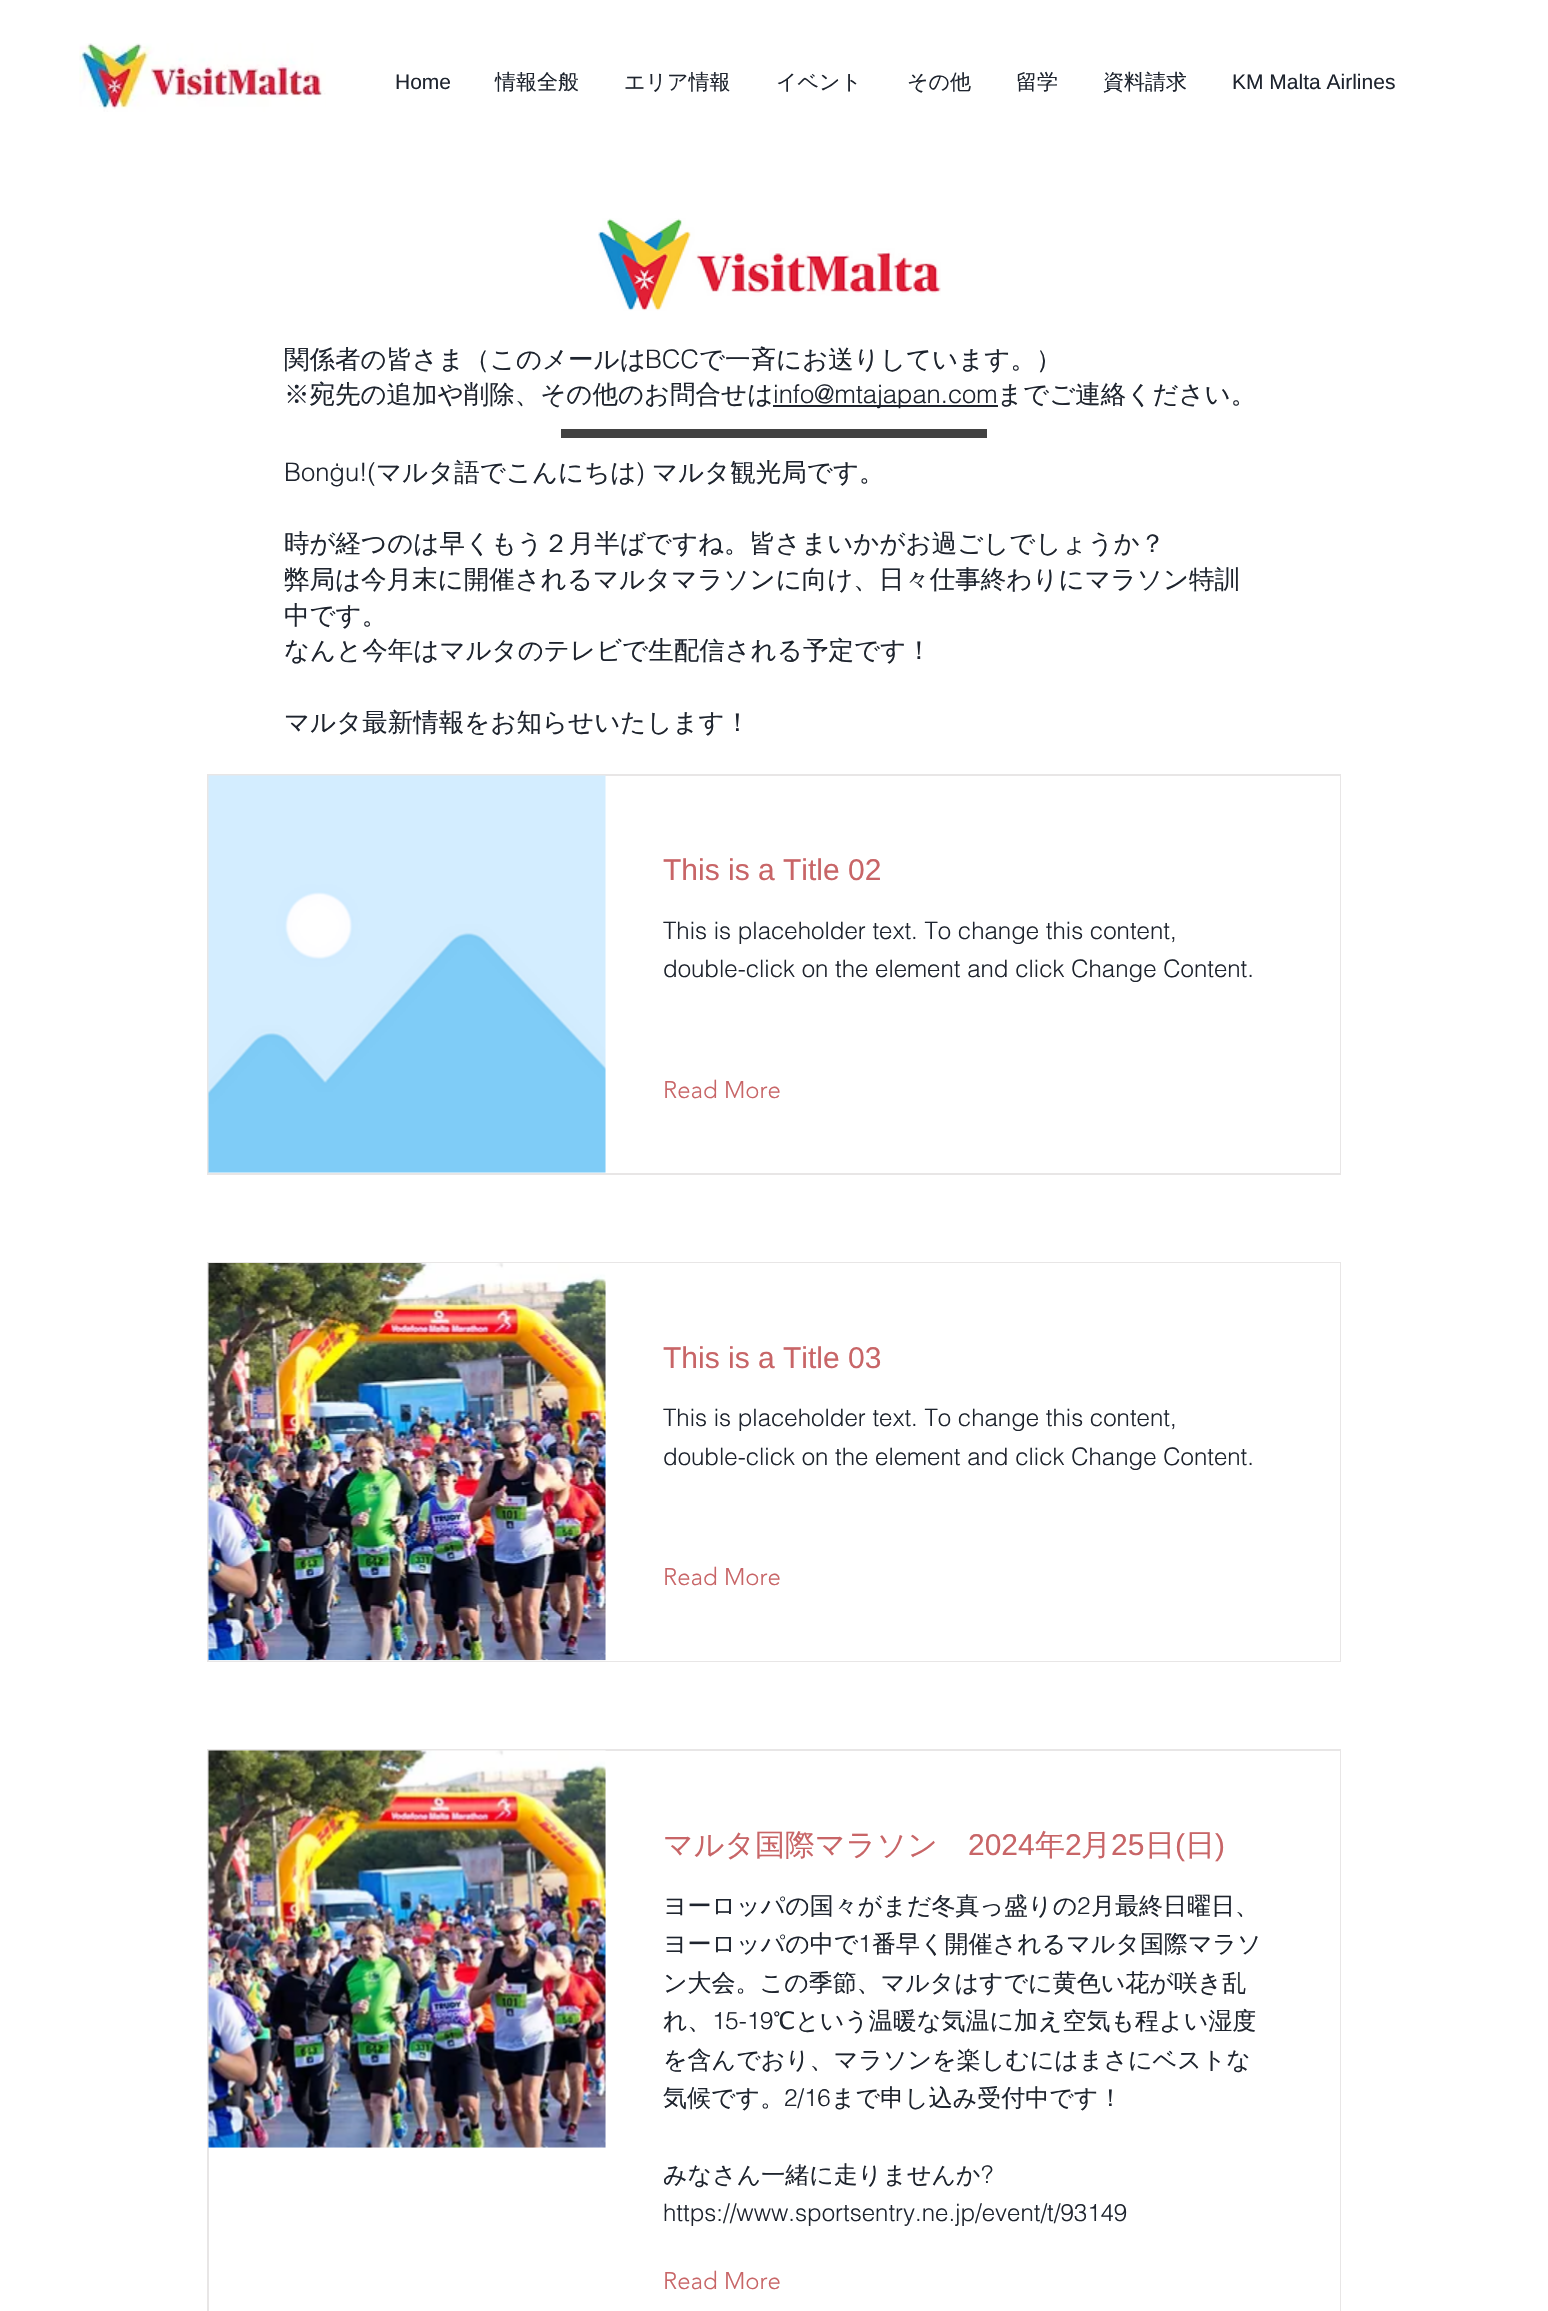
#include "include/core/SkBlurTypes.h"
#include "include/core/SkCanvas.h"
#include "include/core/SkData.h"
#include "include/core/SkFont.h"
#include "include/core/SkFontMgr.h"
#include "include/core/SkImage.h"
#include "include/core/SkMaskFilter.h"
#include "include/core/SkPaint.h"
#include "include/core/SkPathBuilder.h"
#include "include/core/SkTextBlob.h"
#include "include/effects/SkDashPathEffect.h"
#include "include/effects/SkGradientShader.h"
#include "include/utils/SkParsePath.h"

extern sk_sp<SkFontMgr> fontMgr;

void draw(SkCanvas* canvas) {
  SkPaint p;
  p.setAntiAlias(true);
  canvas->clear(SK_ColorWHITE);
  canvas->drawImageRect(SkImages::DeferredFromEncodedData(SkData::MakeFromFileName("images/1.png")), SkRect::MakeLTRB(79, 43, 326, 112), SkSamplingOptions());
  canvas->drawImageRect(SkImages::DeferredFromEncodedData(SkData::MakeFromFileName("images/2.png")), SkRect::MakeLTRB(598, 218, 941, 311), SkSamplingOptions());
  p.setColor(SkColorSetRGB(30, 36, 46));
  canvas->drawRect(SkRect::MakeLTRB(773, 405, 998, 407), p);
  p.setColor(SkColorSetRGB(66, 66, 66));
  canvas->drawRect(SkRect::MakeLTRB(561, 429, 987, 438), p);
  p.setStyle(SkPaint::kStroke_Style);
  p.setStrokeWidth(2);
  p.setColor(SkColorSetRGB(232, 230, 230));
  canvas->drawRect(SkRect::MakeLTRB(208, 775, 1340, 1174), p);
  canvas->drawImageRect(SkImages::DeferredFromEncodedData(SkData::MakeFromFileName("images/3.png")), SkRect::MakeLTRB(208, 775, 606, 1173), SkSamplingOptions());
  p.setStyle(SkPaint::kFill_Style);
  p.setColor(SK_ColorWHITE);
  canvas->drawRect(SkRect::MakeLTRB(1339, 776, 1340, 1173), p);
  p.setStyle(SkPaint::kStroke_Style);
  p.setColor(SkColorSetRGB(232, 230, 230));
  canvas->drawRect(SkRect::MakeLTRB(208, 1263, 1340, 1661), p);
  p.setStyle(SkPaint::kFill_Style);
  p.setColor(SK_ColorWHITE);
  canvas->drawRect(SkRect::MakeLTRB(209, 1263, 1340, 1661), p);
  canvas->drawImageRect(SkImages::DeferredFromEncodedData(SkData::MakeFromFileName("images/4.png")), SkRect::MakeLTRB(208, 1263, 606, 1661), SkSamplingOptions());
  p.setStyle(SkPaint::kStroke_Style);
  p.setColor(SkColorSetRGB(232, 230, 230));
  canvas->drawRect(SkRect::MakeLTRB(208, 1750, 1340, 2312), p);
  canvas->drawImageRect(SkImages::DeferredFromEncodedData(SkData::MakeFromFileName("images/5.png")), SkRect::MakeLTRB(208, 1750, 606, 2148), SkSamplingOptions());
  p.setStyle(SkPaint::kFill_Style);
  p.setColor(SK_ColorWHITE);
  canvas->drawRect(SkRect::MakeLTRB(1339, 1751, 1340, 2311), p);
  SkFont font1(fontMgr->matchFamilyStyle("Liberation Sans", SkFontStyle::Normal()), 21);
  font1.setSubpixel(true);
  p.setColor(SkColorSetRGB(30, 36, 46));
  canvas->drawString("Home", 395, 89, font1, p);
  SkFont font2(fontMgr->matchFamilyStyle("WenQuanYi Zen Hei", SkFontStyle(500, SkFontStyle::kNormal_Width, SkFontStyle::kUpright_Slant)), 21);
  font2.setSubpixel(true);
  canvas->drawString("情報全般", 495, 89, font2, p);
  canvas->drawString("エリア情報", 624, 89, font2, p);
  canvas->drawString("イベント", 776, 89, font2, p);
  canvas->drawString("その他", 907, 89, font2, p);
  canvas->drawString("留学", 1016, 89, font2, p);
  canvas->drawString("資料請求", 1103, 89, font2, p);
  canvas->drawString("KM Malta Airlines", 1232, 89, font1, p);
  SkFont font3(fontMgr->matchFamilyStyle("WenQuanYi Zen Hei", SkFontStyle(500, SkFontStyle::kNormal_Width, SkFontStyle::kUpright_Slant)), 25.5f);
  font3.setSubpixel(true);
  canvas->drawString("関係者の皆さま（このメールは", 284, 368, font3, p);
  SkFont font4(fontMgr->matchFamilyStyle("helvetica", SkFontStyle(300, SkFontStyle::kNormal_Width, SkFontStyle::kUpright_Slant)), 25.5f);
  font4.setSubpixel(true);
  canvas->drawString("BCC", 645, 368, font4, p);
  canvas->drawString("で一斉にお送りしています。）", 699, 368, font3, p);
  canvas->drawString("※宛先の追加や削除、その他のお問合せは", 284, 403, font3, p);
  canvas->drawString("info@mtajapan.com", 773, 403, font4, p);
  canvas->drawString("までご連絡ください。", 997, 403, font3, p);
  canvas->drawString("Bonġu!(", 284, 481, font4, p);
  canvas->drawString("マルタ語でこんにちは", 376, 481, font3, p);
  canvas->drawString(")", 636, 481, font4, p);
  canvas->drawString("マルタ観光局です。", 652, 481, font3, p);
  canvas->drawString("時が経つのは早くもう２月半ばですね。皆さまいかがお過ごしでしょうか？", 284, 552, font3, p);
  canvas->drawString("弊局は今月末に開催されるマルタマラソンに向け、日々仕事終わりにマラソン特訓", 284, 588, font3, p);
  canvas->drawString("中です。", 284, 624, font3, p);
  canvas->drawString("なんと今年はマルタのテレビで生配信される予定です！", 284, 659, font3, p);
  canvas->drawString("マルタ最新情報をお知らせいたします！", 284, 731, font3, p);
  SkFont font5(fontMgr->matchFamilyStyle("Liberation Sans", SkFontStyle::Normal()), 30);
  font5.setSubpixel(true);
  p.setColor(SkColorSetRGB(200, 101, 103));
  canvas->drawString("This is a Title 02", 663, 880, font5, p);
  SkFont font6(fontMgr->matchFamilyStyle("helvetica", SkFontStyle(300, SkFontStyle::kNormal_Width, SkFontStyle::kUpright_Slant)), 24);
  font6.setSubpixel(true);
  p.setColor(SkColorSetRGB(30, 36, 46));
  canvas->drawString("This is placeholder text. To change this content,", 663, 939, font6, p);
  canvas->drawString("double-click on the element and click Change Content.", 663, 977, font6, p);
  SkFont font7(fontMgr->matchFamilyStyle("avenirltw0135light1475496", SkFontStyle(300, SkFontStyle::kNormal_Width, SkFontStyle::kUpright_Slant)), 24);
  font7.setSubpixel(true);
  p.setColor(SkColorSetRGB(200, 101, 103));
  canvas->drawString("Read More", 663, 1098, font7, p);
  canvas->drawString("This is a Title 03", 663, 1368, font5, p);
  p.setColor(SkColorSetRGB(30, 36, 46));
  canvas->drawString("This is placeholder text. To change this content,", 663, 1426, font6, p);
  canvas->drawString("double-click on the element and click Change Content.", 663, 1465, font6, p);
  p.setColor(SkColorSetRGB(200, 101, 103));
  canvas->drawString("Read More", 663, 1585, font7, p);
  SkFont font8(fontMgr->matchFamilyStyle("WenQuanYi Zen Hei", SkFontStyle(500, SkFontStyle::kNormal_Width, SkFontStyle::kUpright_Slant)), 30);
  font8.setSubpixel(true);
  canvas->drawString("マルタ国際マラソン", 663, 1855, font8, p);
  canvas->drawString("2024", 968, 1855, font5, p);
  canvas->drawString("年", 1035, 1855, font8, p);
  canvas->drawString("2", 1065, 1855, font5, p);
  canvas->drawString("月", 1081, 1855, font8, p);
  canvas->drawString("25", 1111, 1855, font5, p);
  canvas->drawString("日", 1145, 1855, font8, p);
  canvas->drawString("(", 1175, 1855, font5, p);
  canvas->drawString("日", 1185, 1855, font8, p);
  canvas->drawString(")", 1215, 1855, font5, p);
  SkFont font9(fontMgr->matchFamilyStyle("WenQuanYi Zen Hei", SkFontStyle(500, SkFontStyle::kNormal_Width, SkFontStyle::kUpright_Slant)), 24);
  font9.setSubpixel(true);
  p.setColor(SkColorSetRGB(30, 36, 46));
  canvas->drawString("ヨーロッパの国々がまだ冬真っ盛りの", 663, 1914, font9, p);
  canvas->drawString("2", 1077, 1914, font6, p);
  canvas->drawString("月最終日曜日、", 1091, 1914, font9, p);
  canvas->drawString("ヨーロッパの中で", 663, 1952, font9, p);
  canvas->drawString("1", 858, 1952, font6, p);
  canvas->drawString("番早く開催されるマルタ国際マラソ", 872, 1952, font9, p);
  canvas->drawString("ン大会。この季節、マルタはすでに黄色い花が咲き乱", 663, 1991, font9, p);
  canvas->drawString("れ、", 663, 2029, font9, p);
  canvas->drawString("15-19", 712, 2029, font6, p);
  canvas->drawString("℃という温暖な気温に加え空気も程よい湿度", 773, 2029, font9, p);
  canvas->drawString("を含んでおり、マラソンを楽しむにはまさにベストな", 663, 2068, font9, p);
  canvas->drawString("気候です。", 663, 2106, font9, p);
  canvas->drawString("2/16", 784, 2106, font6, p);
  canvas->drawString("まで申し込み受付中です！", 831, 2106, font9, p);
  canvas->drawString("みなさん一緒に走りませんか", 663, 2183, font9, p);
  canvas->drawString("?", 981, 2183, font6, p);
  canvas->drawString("https://www.sportsentry.ne.jp/event/t/93149", 663, 2221, font6, p);
  p.setColor(SkColorSetRGB(200, 101, 103));
  canvas->drawString("Read More", 663, 2289, font7, p);
}
